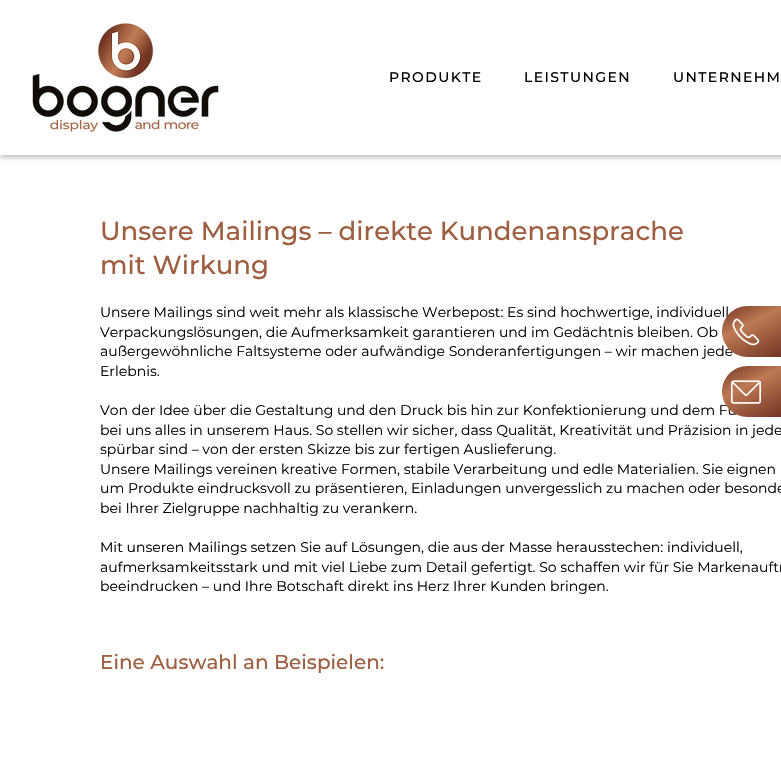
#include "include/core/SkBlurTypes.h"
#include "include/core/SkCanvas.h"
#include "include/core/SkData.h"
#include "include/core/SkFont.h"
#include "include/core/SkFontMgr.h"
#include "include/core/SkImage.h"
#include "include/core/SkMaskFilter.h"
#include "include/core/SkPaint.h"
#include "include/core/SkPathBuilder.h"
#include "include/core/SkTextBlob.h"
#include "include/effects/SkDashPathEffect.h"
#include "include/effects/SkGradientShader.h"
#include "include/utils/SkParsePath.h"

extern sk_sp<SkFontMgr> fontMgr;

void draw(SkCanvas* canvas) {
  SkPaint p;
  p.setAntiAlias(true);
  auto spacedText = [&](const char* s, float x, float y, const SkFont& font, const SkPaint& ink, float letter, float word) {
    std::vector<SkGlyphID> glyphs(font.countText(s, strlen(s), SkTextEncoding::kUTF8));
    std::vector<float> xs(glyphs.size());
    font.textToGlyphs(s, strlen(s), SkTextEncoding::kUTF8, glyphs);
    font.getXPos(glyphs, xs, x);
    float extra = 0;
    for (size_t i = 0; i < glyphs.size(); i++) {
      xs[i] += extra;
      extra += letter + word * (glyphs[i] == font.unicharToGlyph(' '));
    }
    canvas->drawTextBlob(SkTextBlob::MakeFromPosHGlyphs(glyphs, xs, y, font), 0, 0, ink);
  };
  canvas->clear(SK_ColorWHITE);
  canvas->save();
  canvas->clipRect(SkRect::MakeLTRB(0, 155, 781, 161));
  p.setColor(SkColorSetARGB(56, 0, 0, 0));
  p.setMaskFilter(SkMaskFilter::MakeBlur(kNormal_SkBlurStyle, 2));
  canvas->drawRect(SkRect::MakeLTRB(0, 3, 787, 158), p);
  p.setMaskFilter(nullptr);
  canvas->restore();
  canvas->drawImageRect(SkImages::DeferredFromEncodedData(SkData::MakeFromFileName("images/1.png")), SkRect::MakeLTRB(32, 23, 219, 132), SkSamplingOptions());
  SkFont font1(fontMgr->matchFamilyStyle("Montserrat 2", SkFontStyle(500, SkFontStyle::kNormal_Width, SkFontStyle::kUpright_Slant)), 14);
  font1.setSubpixel(true);
  p.setColor(SK_ColorBLACK);
  spacedText("PRODUKTE", 389, 82, font1, p, 1.4f, 0);
  spacedText("LEISTUNGEN", 524, 82, font1, p, 1.4f, 0);
  spacedText("UNTERNEHM", 673, 82, font1, p, 1.4f, 0);
  SkFont font2(fontMgr->matchFamilyStyle("Montserrat", SkFontStyle(500, SkFontStyle::kNormal_Width, SkFontStyle::kUpright_Slant)), 26);
  font2.setSubpixel(true);
  p.setColor(SkColorSetRGB(159, 94, 64));
  canvas->drawString("Unsere Mailings – direkte Kundenansprache", 100, 240, font2, p);
  canvas->drawString("mit Wirkung", 100, 274, font2, p);
  SkFont font3(fontMgr->matchFamilyStyle("Montserrat", SkFontStyle::Normal()), 14);
  font3.setSubpixel(true);
  p.setColor(SK_ColorBLACK);
  canvas->drawString("Unsere Mailings sind weit mehr als klassische Werbepost: Es sind hochwertige, individuell", 100, 317, font3, p);
  canvas->drawString("Verpackungslösungen, die Aufmerksamkeit garantieren und im Gedächtnis bleiben. Ob", 100, 337, font3, p);
  canvas->drawString("außergewöhnliche Faltsysteme oder aufwändige Sonderanfertigungen – wir machen jede", 100, 356, font3, p);
  canvas->drawString("Erlebnis.", 100, 376, font3, p);
  canvas->drawString("Von der Idee über die Gestaltung und den Druck bis hin zur Konfektionierung und dem Fu", 100, 415, font3, p);
  canvas->drawString("bei uns alles in unserem Haus. So stellen wir sicher, dass Qualität, Kreativität und Präzision in jede", 100, 435, font3, p);
  canvas->drawString("spürbar sind – von der ersten Skizze bis zur fertigen Auslieferung.", 100, 454, font3, p);
  canvas->drawString("Unsere Mailings vereinen kreative Formen, stabile Verarbeitung und edle Materialien. Sie eignen", 100, 474, font3, p);
  canvas->drawString("um Produkte eindrucksvoll zu präsentieren, Einladungen unvergesslich zu machen oder besonde", 100, 493, font3, p);
  canvas->drawString("bei Ihrer Zielgruppe nachhaltig zu verankern.", 100, 513, font3, p);
  canvas->drawString("Mit unseren Mailings setzen Sie auf Lösungen, die aus der Masse herausstechen: individuell,", 100, 552, font3, p);
  canvas->drawString("aufmerksamkeitsstark und mit viel Liebe zum Detail gefertigt. So schaffen wir für Sie Markenauftr", 100, 572, font3, p);
  canvas->drawString("beeindrucken – und Ihre Botschaft direkt ins Herz Ihrer Kunden bringen.", 100, 591, font3, p);
  SkFont font4(fontMgr->matchFamilyStyle("Montserrat", SkFontStyle(500, SkFontStyle::kNormal_Width, SkFontStyle::kUpright_Slant)), 20);
  font4.setSubpixel(true);
  p.setColor(SkColorSetRGB(159, 94, 64));
  canvas->drawString("Eine Auswahl an Beispielen:", 100, 669, font4, p);
  {
    const SkColor colors[] = {SkColorSetRGB(114, 52, 35), SkColorSetRGB(190, 122, 84), SkColorSetRGB(114, 52, 35)};
    const float stops[] = {0, 0.61f, 1};
    const SkPoint ends[] = {{768, 364}, {735, 299}};
    p.setShader(SkGradientShader::MakeLinear(ends, colors, stops, 3, SkTileMode::kClamp));
    p.setAlpha(255);
  }
  canvas->drawPath(SkPathBuilder().moveTo(747.5f, 306).lineTo(781, 306).lineTo(781, 357).lineTo(747.5f, 357).cubicTo(733.5f, 357, 722, 345.5f, 722, 331.5f).cubicTo(722, 317.5f, 733.5f, 306, 747.5f, 306).close().detach(), p);
  canvas->drawImageRect(SkImages::DeferredFromEncodedData(SkData::MakeFromFileName("images/2.png")), SkRect::MakeLTRB(732, 318, 760, 346), SkSamplingOptions());
  {
    const SkColor colors[] = {SkColorSetRGB(114, 52, 35), SkColorSetRGB(190, 122, 84), SkColorSetRGB(114, 52, 35)};
    const float stops[] = {0, 0.61f, 1};
    const SkPoint ends[] = {{768, 424}, {735, 359}};
    p.setShader(SkGradientShader::MakeLinear(ends, colors, stops, 3, SkTileMode::kClamp));
    p.setAlpha(255);
  }
  canvas->drawPath(SkPathBuilder().moveTo(747.5f, 366).lineTo(781, 366).lineTo(781, 417).lineTo(747.5f, 417).cubicTo(733.5f, 417, 722, 405.5f, 722, 391.5f).cubicTo(722, 377.5f, 733.5f, 366, 747.5f, 366).close().detach(), p);
  canvas->drawImageRect(SkImages::DeferredFromEncodedData(SkData::MakeFromFileName("images/3.png")), SkRect::MakeLTRB(731, 380, 761, 404), SkSamplingOptions());
}
